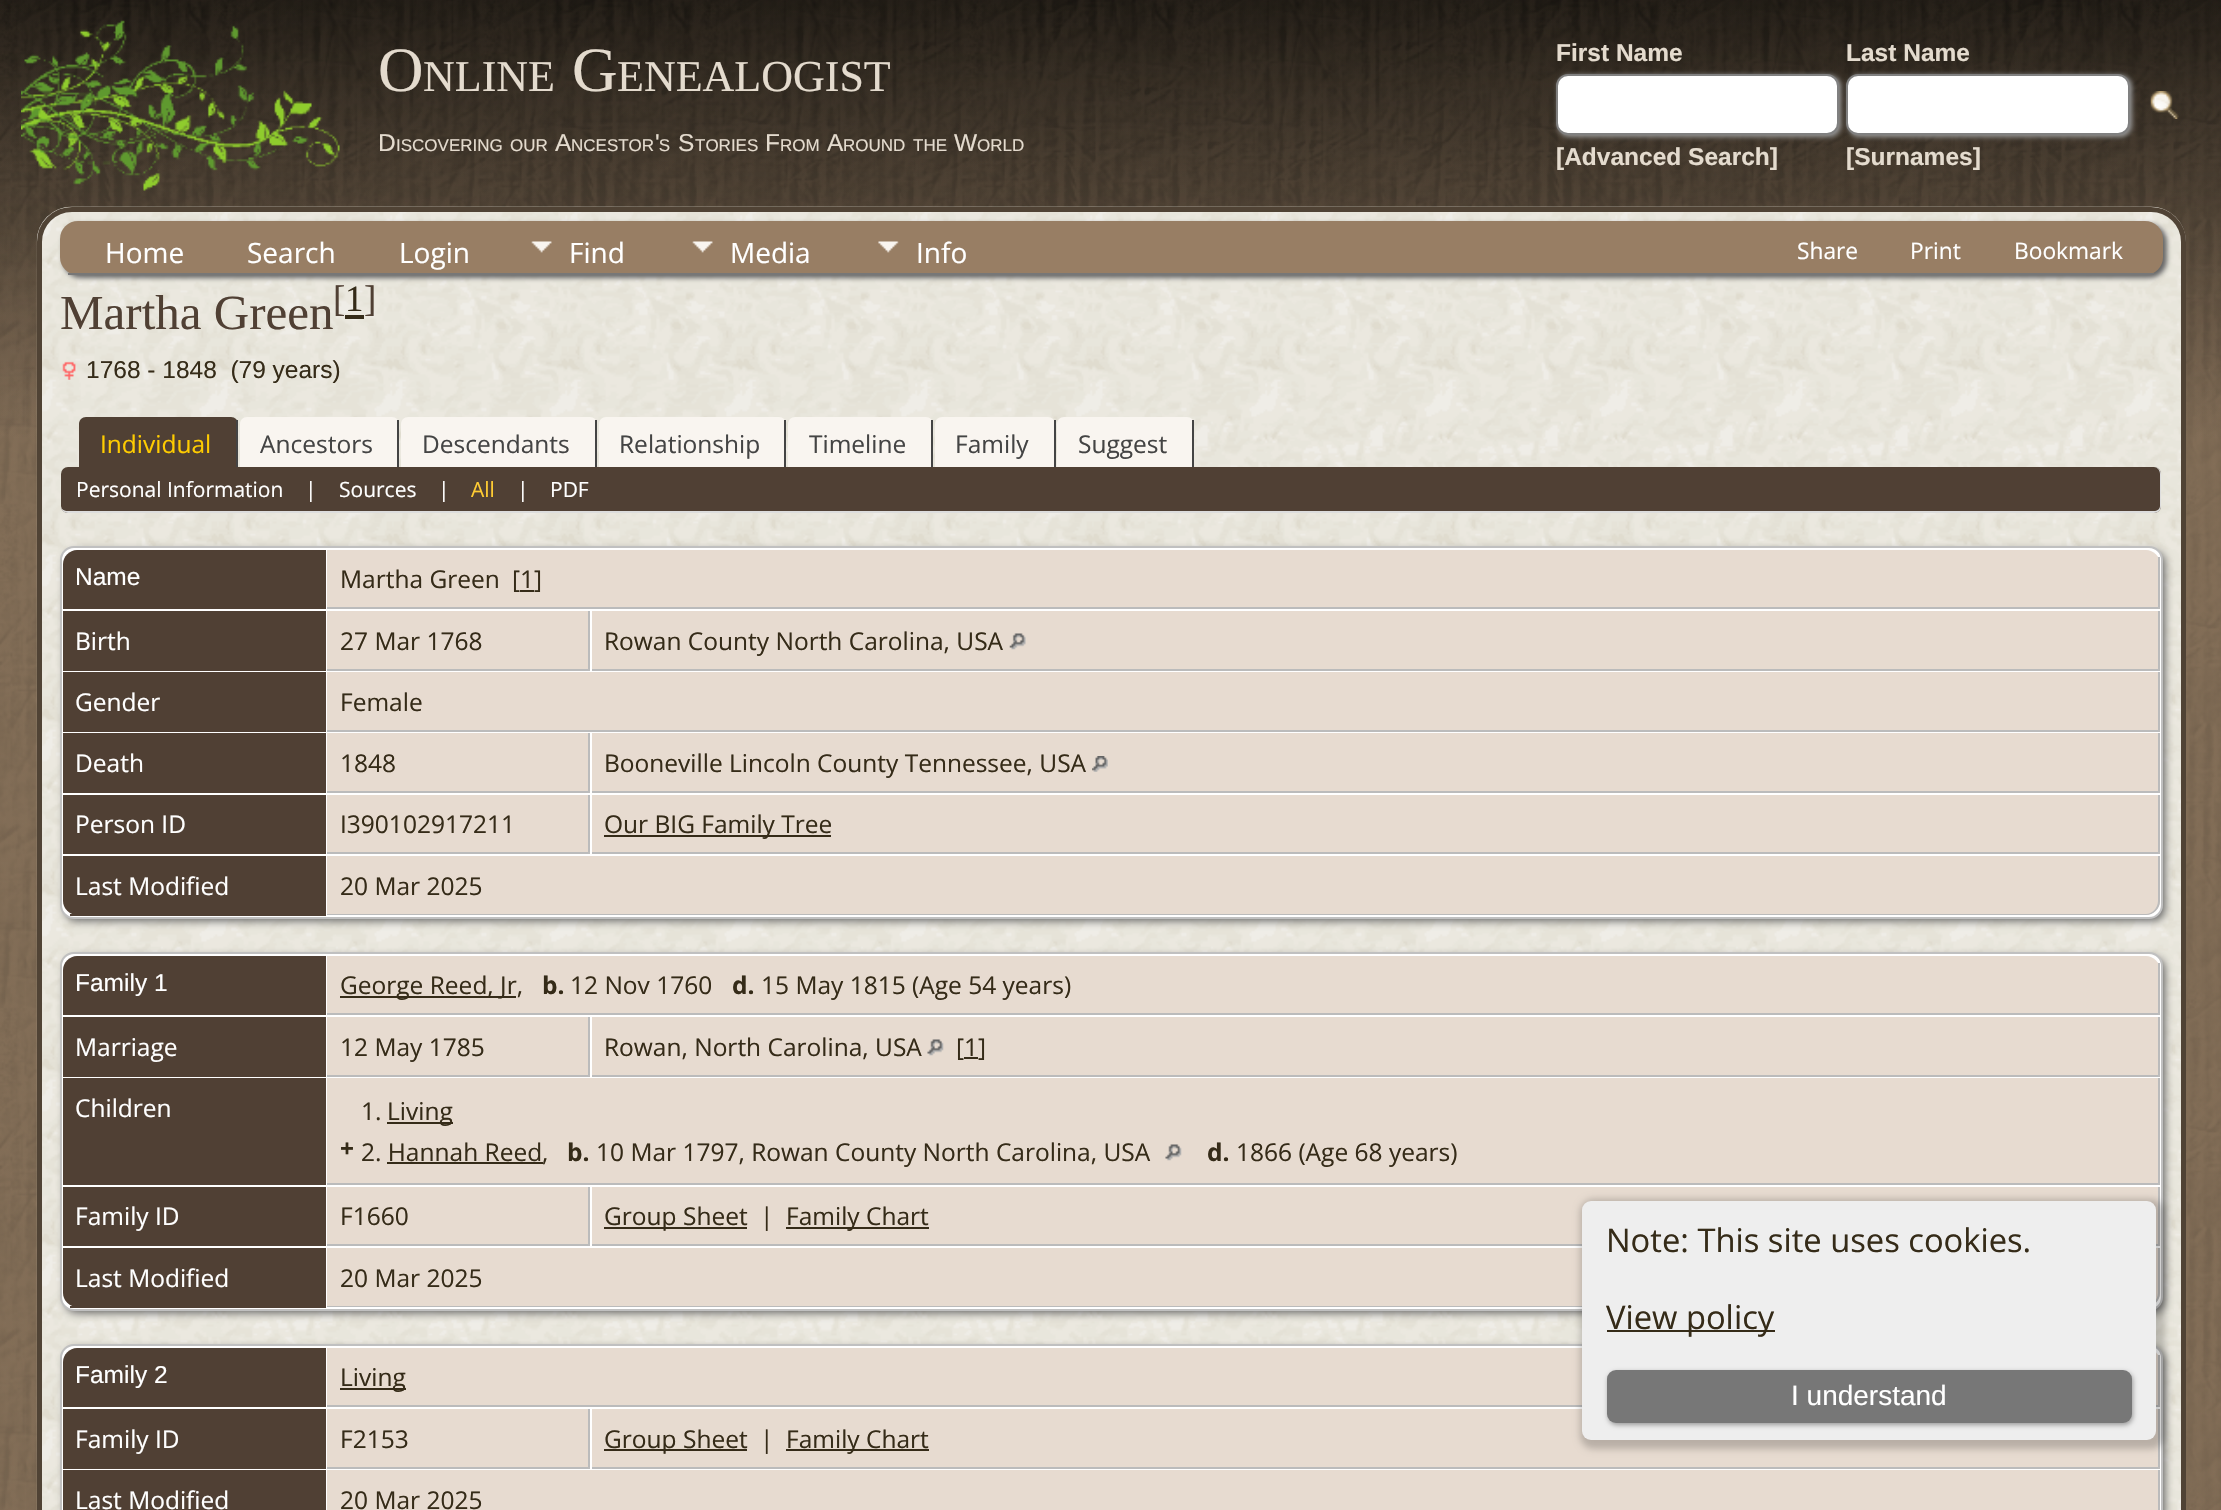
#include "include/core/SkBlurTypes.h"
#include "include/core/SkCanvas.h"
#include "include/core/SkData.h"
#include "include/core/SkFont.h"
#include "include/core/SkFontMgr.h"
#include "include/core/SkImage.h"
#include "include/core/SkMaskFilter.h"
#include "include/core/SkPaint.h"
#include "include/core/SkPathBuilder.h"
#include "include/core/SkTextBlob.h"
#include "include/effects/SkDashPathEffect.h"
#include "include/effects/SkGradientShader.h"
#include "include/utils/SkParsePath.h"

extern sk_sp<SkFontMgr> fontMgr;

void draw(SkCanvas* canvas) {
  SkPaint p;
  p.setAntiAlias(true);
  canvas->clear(SK_ColorWHITE);
  canvas->drawImageRect(SkImages::DeferredFromEncodedData(SkData::MakeFromFileName("images/1.png")), SkRect::MakeLTRB(0, 0, 2221, 1510), SkSamplingOptions());
  canvas->drawImageRect(SkImages::DeferredFromEncodedData(SkData::MakeFromFileName("images/2.png")), SkRect::MakeLTRB(21, 20, 340, 191), SkSamplingOptions());
  p.setColor(SkColorSetRGB(153, 153, 153));
  p.setMaskFilter(SkMaskFilter::MakeBlur(kNormal_SkBlurStyle, 2.5f));
  canvas->drawRoundRect(SkRect::MakeLTRB(1558, 75, 1841, 137), 12, 12, p);
  p.setMaskFilter(nullptr);
  p.setColor(SK_ColorWHITE);
  canvas->drawRoundRect(SkRect::MakeLTRB(1557, 75, 1838, 134), 11, 11, p);
  p.setStyle(SkPaint::kStroke_Style);
  p.setStrokeWidth(2);
  p.setColor(SkColorSetRGB(128, 128, 128));
  canvas->drawRoundRect(SkRect::MakeLTRB(1557, 75, 1838, 134), 11, 11, p);
  p.setStyle(SkPaint::kFill_Style);
  p.setColor(SkColorSetRGB(153, 153, 153));
  p.setMaskFilter(SkMaskFilter::MakeBlur(kNormal_SkBlurStyle, 2.5f));
  canvas->drawRoundRect(SkRect::MakeLTRB(1848, 75, 2132, 137), 12, 12, p);
  p.setMaskFilter(nullptr);
  p.setColor(SK_ColorWHITE);
  canvas->drawRoundRect(SkRect::MakeLTRB(1847, 75, 2129, 134), 11, 11, p);
  p.setStyle(SkPaint::kStroke_Style);
  p.setColor(SkColorSetRGB(128, 128, 128));
  canvas->drawRoundRect(SkRect::MakeLTRB(1847, 75, 2129, 134), 11, 11, p);
  canvas->drawImageRect(SkImages::DeferredFromEncodedData(SkData::MakeFromFileName("images/3.png")), SkRect::MakeLTRB(2150, 91, 2179, 119), SkSamplingOptions());
  canvas->drawImageRect(SkImages::DeferredFromEncodedData(SkData::MakeFromFileName("images/4.png")), SkRect::MakeLTRB(36, 206, 2186, 1510), SkSamplingOptions());
  p.setStrokeWidth(5);
  p.setColor(SkColorSetRGB(80, 67, 53));
  canvas->drawRoundRect(SkRect::MakeLTRB(39.5f, 209.5f, 2183.5f, 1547.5f), 32.5f, 32.5f, p);
  p.setStyle(SkPaint::kFill_Style);
  p.setColor(SkColorSetRGB(102, 102, 102));
  p.setMaskFilter(SkMaskFilter::MakeBlur(kNormal_SkBlurStyle, 2.5f));
  canvas->drawRoundRect(SkRect::MakeLTRB(63, 224, 2167, 278), 18, 18, p);
  p.setMaskFilter(nullptr);
  p.setColor(SkColorSetRGB(152, 126, 100));
  canvas->drawRoundRect(SkRect::MakeLTRB(60, 221, 2163, 275), 18, 18, p);
  p.setColor(SkColorSetRGB(119, 119, 119));
  canvas->drawRect(SkRect::MakeLTRB(68, 273, 2154, 275), p);
  canvas->drawImageRect(SkImages::DeferredFromEncodedData(SkData::MakeFromFileName("images/5.png")), SkRect::MakeLTRB(531, 241, 552, 253), SkSamplingOptions());
  canvas->drawImageRect(SkImages::DeferredFromEncodedData(SkData::MakeFromFileName("images/5.png")), SkRect::MakeLTRB(692, 241, 713, 253), SkSamplingOptions());
  canvas->drawImageRect(SkImages::DeferredFromEncodedData(SkData::MakeFromFileName("images/6.png")), SkRect::MakeLTRB(878, 241, 899, 253), SkSamplingOptions());
  p.setColor(SkColorSetRGB(53, 43, 24));
  canvas->drawRect(SkRect::MakeLTRB(345, 315, 364, 319), p);
  canvas->drawImageRect(SkImages::DeferredFromEncodedData(SkData::MakeFromFileName("images/7.png")), SkRect::MakeLTRB(62, 361, 76, 380), SkSamplingOptions());
  p.setColor(SkColorSetRGB(80, 64, 52));
  canvas->drawPath(SkPathBuilder().moveTo(86, 417).lineTo(231, 417).cubicTo(235, 417, 238, 420, 238, 424).lineTo(238, 467).lineTo(79, 467).lineTo(79, 424).cubicTo(79, 420, 82, 417, 86, 417).close().detach(), p);
  p.setColor(SkColorSetRGB(68, 68, 68));
  canvas->drawRect(SkRect::MakeLTRB(236, 420, 238, 467), p);
  p.setColor(SkColorSetRGB(249, 245, 240));
  canvas->drawPath(SkPathBuilder().moveTo(247, 417).lineTo(392, 417).cubicTo(396, 417, 399, 420, 399, 424).lineTo(399, 467).lineTo(240, 467).lineTo(240, 424).cubicTo(240, 420, 243, 417, 247, 417).close().detach(), p);
  p.setColor(SkColorSetRGB(68, 68, 68));
  canvas->drawRect(SkRect::MakeLTRB(397, 420, 399, 467), p);
  p.setColor(SkColorSetRGB(249, 245, 240));
  canvas->drawPath(SkPathBuilder().moveTo(408, 417).lineTo(590, 417).cubicTo(594, 417, 597, 420, 597, 424).lineTo(597, 467).lineTo(401, 467).lineTo(401, 424).cubicTo(401, 420, 404, 417, 408, 417).close().detach(), p);
  p.setColor(SkColorSetRGB(68, 68, 68));
  canvas->drawRect(SkRect::MakeLTRB(595, 420, 597, 467), p);
  p.setColor(SkColorSetRGB(249, 245, 240));
  canvas->drawPath(SkPathBuilder().moveTo(606, 417).lineTo(779, 417).cubicTo(783, 417, 786, 420, 786, 424).lineTo(786, 467).lineTo(599, 467).lineTo(599, 424).cubicTo(599, 420, 602, 417, 606, 417).close().detach(), p);
  p.setColor(SkColorSetRGB(68, 68, 68));
  canvas->drawRect(SkRect::MakeLTRB(784, 420, 786, 467), p);
  p.setColor(SkColorSetRGB(249, 245, 240));
  canvas->drawPath(SkPathBuilder().moveTo(795, 417).lineTo(926, 417).cubicTo(930, 417, 933, 420, 933, 424).lineTo(933, 467).lineTo(788, 467).lineTo(788, 424).cubicTo(788, 420, 791, 417, 795, 417).close().detach(), p);
  p.setColor(SkColorSetRGB(68, 68, 68));
  canvas->drawRect(SkRect::MakeLTRB(931, 420, 933, 467), p);
  p.setColor(SkColorSetRGB(249, 245, 240));
  canvas->drawPath(SkPathBuilder().moveTo(942, 417).lineTo(1048, 417).cubicTo(1052, 417, 1055, 420, 1055, 424).lineTo(1055, 467).lineTo(935, 467).lineTo(935, 424).cubicTo(935, 420, 938, 417, 942, 417).close().detach(), p);
  p.setColor(SkColorSetRGB(68, 68, 68));
  canvas->drawRect(SkRect::MakeLTRB(1054, 420, 1056, 467), p);
  p.setColor(SkColorSetRGB(249, 245, 240));
  canvas->drawPath(SkPathBuilder().moveTo(1064, 417).lineTo(1187, 417).cubicTo(1191, 417, 1194, 420, 1194, 424).lineTo(1194, 467).lineTo(1057, 467).lineTo(1057, 424).cubicTo(1057, 420, 1060, 417, 1064, 417).close().detach(), p);
  p.setColor(SkColorSetRGB(68, 68, 68));
  canvas->drawRect(SkRect::MakeLTRB(1192, 420, 1194, 467), p);
  p.setColor(SkColorSetRGB(80, 64, 52));
  canvas->drawRoundRect(SkRect::MakeLTRB(61, 467, 2161, 513), 7, 7, p);
  p.setColor(SkColorSetRGB(221, 221, 221));
  canvas->drawPath(SkPathBuilder(SkPathFillType::kEvenOdd).moveTo(68, 467).lineTo(2154, 467).cubicTo(2158, 467, 2161, 470, 2161, 474).lineTo(2161, 506).cubicTo(2161, 510, 2158, 513, 2154, 513).lineTo(68, 513).cubicTo(64, 513, 61, 510, 61, 506).lineTo(61, 474).cubicTo(61, 470, 64, 467, 68, 467).close().moveTo(68, 467).lineTo(2154, 467).cubicTo(2157, 467, 2160, 470, 2160, 474).lineTo(2160, 506).cubicTo(2160, 509, 2157, 511, 2154, 511).lineTo(68, 511).cubicTo(64, 511, 61, 509, 61, 506).lineTo(61, 474).cubicTo(61, 470, 64, 467, 68, 467).close().detach(), p);
  p.setColor(SkColorSetRGB(102, 102, 102));
  p.setMaskFilter(SkMaskFilter::MakeBlur(kNormal_SkBlurStyle, 4.5f));
  canvas->drawRoundRect(SkRect::MakeLTRB(65, 551, 2165, 921), 12, 12, p);
  p.setMaskFilter(nullptr);
  p.setColor(SK_ColorWHITE);
  canvas->drawRoundRect(SkRect::MakeLTRB(61, 547, 2162, 918), 13, 13, p);
  p.setStyle(SkPaint::kStroke_Style);
  p.setStrokeWidth(2);
  p.setColor(SkColorSetRGB(192, 192, 192));
  canvas->drawRoundRect(SkRect::MakeLTRB(61, 547, 2162, 918), 13, 13, p);
  p.setStyle(SkPaint::kFill_Style);
  p.setColor(SkColorSetRGB(80, 64, 52));
  canvas->drawPath(SkPathBuilder().moveTo(77, 550).lineTo(326, 550).lineTo(326, 609).lineTo(63, 609).lineTo(63, 564).cubicTo(63, 556.5f, 69.5f, 550, 77, 550).close().detach(), p);
  p.setColor(SkColorSetRGB(231, 219, 208));
  canvas->drawPath(SkPathBuilder().moveTo(327, 550).lineTo(2146, 550).cubicTo(2153.5f, 550, 2160, 556.5f, 2160, 564).lineTo(2160, 609).lineTo(327, 609).close().detach(), p);
  p.setColor(SkColorSetRGB(187, 187, 187));
  canvas->drawRect(SkRect::MakeLTRB(2158, 557, 2160, 609), p);
  canvas->drawRect(SkRect::MakeLTRB(327, 607, 2160, 609), p);
  p.setColor(SkColorSetRGB(53, 43, 24));
  canvas->drawRect(SkRect::MakeLTRB(520, 590, 534, 592), p);
  p.setColor(SkColorSetRGB(80, 64, 52));
  canvas->drawRect(SkRect::MakeLTRB(63, 611, 326, 671), p);
  p.setColor(SkColorSetRGB(231, 219, 208));
  canvas->drawRect(SkRect::MakeLTRB(327, 611, 588, 669), p);
  p.setColor(SkColorSetRGB(187, 187, 187));
  canvas->drawRect(SkRect::MakeLTRB(588, 611, 590, 670), p);
  canvas->drawRect(SkRect::MakeLTRB(327, 669, 590, 671), p);
  p.setColor(SkColorSetRGB(231, 219, 208));
  canvas->drawRect(SkRect::MakeLTRB(592, 611, 2158, 669), p);
  p.setColor(SkColorSetRGB(187, 187, 187));
  canvas->drawRect(SkRect::MakeLTRB(2158, 611, 2160, 670), p);
  canvas->drawRect(SkRect::MakeLTRB(592, 669, 2160, 671), p);
  canvas->drawImageRect(SkImages::DeferredFromEncodedData(SkData::MakeFromFileName("images/8.png")), SkRect::MakeLTRB(1009, 633, 1026, 650), SkSamplingOptions());
  p.setColor(SkColorSetRGB(80, 64, 52));
  canvas->drawRect(SkRect::MakeLTRB(63, 672, 326, 732), p);
  p.setColor(SkColorSetRGB(231, 219, 208));
  canvas->drawRect(SkRect::MakeLTRB(327, 672, 2158, 730), p);
  p.setColor(SkColorSetRGB(187, 187, 187));
  canvas->drawRect(SkRect::MakeLTRB(2158, 672, 2160, 732), p);
  canvas->drawRect(SkRect::MakeLTRB(327, 730, 2160, 732), p);
  p.setColor(SkColorSetRGB(80, 64, 52));
  canvas->drawRect(SkRect::MakeLTRB(63, 733, 326, 793), p);
  p.setColor(SkColorSetRGB(231, 219, 208));
  canvas->drawRect(SkRect::MakeLTRB(327, 733, 588, 791), p);
  p.setColor(SkColorSetRGB(187, 187, 187));
  canvas->drawRect(SkRect::MakeLTRB(588, 733, 590, 793), p);
  canvas->drawRect(SkRect::MakeLTRB(327, 791, 590, 793), p);
  p.setColor(SkColorSetRGB(231, 219, 208));
  canvas->drawRect(SkRect::MakeLTRB(592, 733, 2158, 791), p);
  p.setColor(SkColorSetRGB(187, 187, 187));
  canvas->drawRect(SkRect::MakeLTRB(2158, 733, 2160, 793), p);
  canvas->drawRect(SkRect::MakeLTRB(592, 791, 2160, 793), p);
  canvas->drawImageRect(SkImages::DeferredFromEncodedData(SkData::MakeFromFileName("images/9.png")), SkRect::MakeLTRB(1092, 756, 1108, 772), SkSamplingOptions());
  p.setColor(SkColorSetRGB(80, 64, 52));
  canvas->drawRect(SkRect::MakeLTRB(63, 795, 326, 854), p);
  p.setColor(SkColorSetRGB(231, 219, 208));
  canvas->drawRect(SkRect::MakeLTRB(327, 795, 588, 852), p);
  p.setColor(SkColorSetRGB(187, 187, 187));
  canvas->drawRect(SkRect::MakeLTRB(588, 795, 590, 854), p);
  canvas->drawRect(SkRect::MakeLTRB(327, 852, 590, 854), p);
  p.setColor(SkColorSetRGB(231, 219, 208));
  canvas->drawRect(SkRect::MakeLTRB(592, 795, 2158, 852), p);
  p.setColor(SkColorSetRGB(187, 187, 187));
  canvas->drawRect(SkRect::MakeLTRB(2158, 795, 2160, 854), p);
  canvas->drawRect(SkRect::MakeLTRB(592, 852, 2160, 854), p);
  p.setColor(SkColorSetRGB(53, 43, 24));
  canvas->drawRect(SkRect::MakeLTRB(604, 835, 831, 837), p);
  p.setColor(SkColorSetRGB(80, 64, 52));
  canvas->drawPath(SkPathBuilder().moveTo(63, 856).lineTo(326, 856).lineTo(326, 915).lineTo(77, 915).cubicTo(69.5f, 915, 63, 908.5f, 63, 901).close().detach(), p);
  canvas->drawRect(SkRect::MakeLTRB(70, 914, 326, 916), p);
  p.setColor(SkColorSetRGB(231, 219, 208));
  canvas->drawPath(SkPathBuilder().moveTo(327, 856).lineTo(2160, 856).lineTo(2160, 901).cubicTo(2160, 908.5f, 2153.5f, 915, 2146, 915).lineTo(327, 915).close().detach(), p);
  p.setColor(SkColorSetRGB(187, 187, 187));
  canvas->drawPath(SkPathBuilder(SkPathFillType::kEvenOdd).moveTo(327, 856).lineTo(2160, 856).lineTo(2160, 901).cubicTo(2160, 909, 2153, 915, 2146, 915).lineTo(327, 915).close().moveTo(327, 856).lineTo(2158, 856).lineTo(2158, 901).cubicTo(2158, 908, 2152, 914, 2146, 914).lineTo(327, 914).close().detach(), p);
  p.setColor(SkColorSetRGB(102, 102, 102));
  p.setMaskFilter(SkMaskFilter::MakeBlur(kNormal_SkBlurStyle, 4.5f));
  canvas->drawRoundRect(SkRect::MakeLTRB(65, 957, 2165, 1313), 12, 12, p);
  p.setMaskFilter(nullptr);
  p.setColor(SK_ColorWHITE);
  canvas->drawRoundRect(SkRect::MakeLTRB(61, 953, 2162, 1310), 13, 13, p);
  p.setStyle(SkPaint::kStroke_Style);
  p.setColor(SkColorSetRGB(192, 192, 192));
  canvas->drawRoundRect(SkRect::MakeLTRB(61, 953, 2162, 1310), 13, 13, p);
  p.setStyle(SkPaint::kFill_Style);
  p.setColor(SkColorSetRGB(80, 64, 52));
  canvas->drawPath(SkPathBuilder().moveTo(77, 956).lineTo(326, 956).lineTo(326, 1015).lineTo(63, 1015).lineTo(63, 970).cubicTo(63, 962.5f, 69.5f, 956, 77, 956).close().detach(), p);
  p.setColor(SkColorSetRGB(231, 219, 208));
  canvas->drawPath(SkPathBuilder().moveTo(327, 956).lineTo(2146, 956).cubicTo(2153.5f, 956, 2160, 962.5f, 2160, 970).lineTo(2160, 1015).lineTo(327, 1015).close().detach(), p);
  p.setColor(SkColorSetRGB(187, 187, 187));
  canvas->drawRect(SkRect::MakeLTRB(2158, 963, 2160, 1015), p);
  canvas->drawRect(SkRect::MakeLTRB(327, 1013, 2160, 1015), p);
  p.setColor(SkColorSetRGB(53, 43, 24));
  canvas->drawRect(SkRect::MakeLTRB(340, 996, 516, 998), p);
  p.setColor(SkColorSetRGB(80, 64, 52));
  canvas->drawRect(SkRect::MakeLTRB(63, 1017, 326, 1077), p);
  p.setColor(SkColorSetRGB(231, 219, 208));
  canvas->drawRect(SkRect::MakeLTRB(327, 1017, 588, 1075), p);
  p.setColor(SkColorSetRGB(187, 187, 187));
  canvas->drawRect(SkRect::MakeLTRB(588, 1017, 590, 1076), p);
  canvas->drawRect(SkRect::MakeLTRB(327, 1075, 590, 1077), p);
  p.setColor(SkColorSetRGB(231, 219, 208));
  canvas->drawRect(SkRect::MakeLTRB(592, 1017, 2158, 1075), p);
  p.setColor(SkColorSetRGB(187, 187, 187));
  canvas->drawRect(SkRect::MakeLTRB(2158, 1017, 2160, 1076), p);
  canvas->drawRect(SkRect::MakeLTRB(592, 1075, 2160, 1077), p);
  canvas->drawImageRect(SkImages::DeferredFromEncodedData(SkData::MakeFromFileName("images/10.png")), SkRect::MakeLTRB(927, 1039, 944, 1056), SkSamplingOptions());
  p.setColor(SkColorSetRGB(53, 43, 24));
  canvas->drawRect(SkRect::MakeLTRB(964, 1057, 978, 1059), p);
  p.setColor(SkColorSetRGB(80, 64, 52));
  canvas->drawRect(SkRect::MakeLTRB(63, 1078, 326, 1185), p);
  p.setColor(SkColorSetRGB(231, 219, 208));
  canvas->drawRect(SkRect::MakeLTRB(327, 1078, 2158, 1183), p);
  p.setColor(SkColorSetRGB(187, 187, 187));
  canvas->drawRect(SkRect::MakeLTRB(2158, 1078, 2160, 1185), p);
  canvas->drawRect(SkRect::MakeLTRB(327, 1183, 2160, 1185), p);
  p.setColor(SkColorSetRGB(53, 43, 24));
  canvas->drawRect(SkRect::MakeLTRB(387, 1122, 453, 1124), p);
  canvas->drawImageRect(SkImages::DeferredFromEncodedData(SkData::MakeFromFileName("images/11.png")), SkRect::MakeLTRB(1165, 1144, 1182, 1161), SkSamplingOptions());
  canvas->drawRect(SkRect::MakeLTRB(387, 1162, 543, 1164), p);
  p.setColor(SkColorSetRGB(80, 64, 52));
  canvas->drawRect(SkRect::MakeLTRB(63, 1187, 326, 1246), p);
  p.setColor(SkColorSetRGB(231, 219, 208));
  canvas->drawRect(SkRect::MakeLTRB(327, 1187, 588, 1244), p);
  p.setColor(SkColorSetRGB(187, 187, 187));
  canvas->drawRect(SkRect::MakeLTRB(588, 1187, 590, 1246), p);
  canvas->drawRect(SkRect::MakeLTRB(327, 1244, 590, 1246), p);
  p.setColor(SkColorSetRGB(231, 219, 208));
  canvas->drawRect(SkRect::MakeLTRB(592, 1187, 2158, 1244), p);
  p.setColor(SkColorSetRGB(187, 187, 187));
  canvas->drawRect(SkRect::MakeLTRB(2158, 1187, 2160, 1246), p);
  canvas->drawRect(SkRect::MakeLTRB(592, 1244, 2160, 1246), p);
  p.setColor(SkColorSetRGB(53, 43, 24));
  canvas->drawRect(SkRect::MakeLTRB(604, 1227, 747, 1229), p);
  canvas->drawRect(SkRect::MakeLTRB(786, 1227, 929, 1229), p);
  p.setColor(SkColorSetRGB(80, 64, 52));
  canvas->drawPath(SkPathBuilder().moveTo(63, 1248).lineTo(326, 1248).lineTo(326, 1307).lineTo(77, 1307).cubicTo(69.5f, 1307, 63, 1300.5f, 63, 1293).close().detach(), p);
  canvas->drawRect(SkRect::MakeLTRB(70, 1306, 326, 1308), p);
  p.setColor(SkColorSetRGB(231, 219, 208));
  canvas->drawPath(SkPathBuilder().moveTo(327, 1248).lineTo(2160, 1248).lineTo(2160, 1293).cubicTo(2160, 1300.5f, 2153.5f, 1307, 2146, 1307).lineTo(327, 1307).close().detach(), p);
  p.setColor(SkColorSetRGB(187, 187, 187));
  canvas->drawPath(SkPathBuilder(SkPathFillType::kEvenOdd).moveTo(327, 1248).lineTo(2160, 1248).lineTo(2160, 1293).cubicTo(2160, 1301, 2153, 1307, 2146, 1307).lineTo(327, 1307).close().moveTo(327, 1248).lineTo(2158, 1248).lineTo(2158, 1293).cubicTo(2158, 1300, 2152, 1306, 2146, 1306).lineTo(327, 1306).close().detach(), p);
  p.setColor(SkColorSetRGB(102, 102, 102));
  p.setMaskFilter(SkMaskFilter::MakeBlur(kNormal_SkBlurStyle, 4.5f));
  canvas->drawRoundRect(SkRect::MakeLTRB(65, 1349, 2165, 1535), 12, 12, p);
  p.setMaskFilter(nullptr);
  p.setColor(SK_ColorWHITE);
  canvas->drawRoundRect(SkRect::MakeLTRB(61, 1345, 2162, 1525), 13, 13, p);
  p.setStyle(SkPaint::kStroke_Style);
  p.setColor(SkColorSetRGB(192, 192, 192));
  canvas->drawRoundRect(SkRect::MakeLTRB(61, 1345, 2162, 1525), 13, 13, p);
  p.setStyle(SkPaint::kFill_Style);
  p.setColor(SkColorSetRGB(80, 64, 52));
  canvas->drawPath(SkPathBuilder().moveTo(77, 1348).lineTo(326, 1348).lineTo(326, 1407).lineTo(63, 1407).lineTo(63, 1362).cubicTo(63, 1354.5f, 69.5f, 1348, 77, 1348).close().detach(), p);
  p.setColor(SkColorSetRGB(231, 219, 208));
  canvas->drawPath(SkPathBuilder().moveTo(327, 1348).lineTo(2146, 1348).cubicTo(2153.5f, 1348, 2160, 1354.5f, 2160, 1362).lineTo(2160, 1407).lineTo(327, 1407).close().detach(), p);
  p.setColor(SkColorSetRGB(187, 187, 187));
  canvas->drawRect(SkRect::MakeLTRB(2158, 1355, 2160, 1407), p);
  canvas->drawRect(SkRect::MakeLTRB(327, 1405, 2160, 1407), p);
  p.setColor(SkColorSetRGB(53, 43, 24));
  canvas->drawRect(SkRect::MakeLTRB(340, 1388, 406, 1390), p);
  p.setColor(SkColorSetRGB(80, 64, 52));
  canvas->drawRect(SkRect::MakeLTRB(63, 1409, 326, 1469), p);
  p.setColor(SkColorSetRGB(231, 219, 208));
  canvas->drawRect(SkRect::MakeLTRB(327, 1409, 588, 1467), p);
  p.setColor(SkColorSetRGB(187, 187, 187));
  canvas->drawRect(SkRect::MakeLTRB(588, 1409, 590, 1468), p);
  canvas->drawRect(SkRect::MakeLTRB(327, 1467, 590, 1469), p);
  p.setColor(SkColorSetRGB(231, 219, 208));
  canvas->drawRect(SkRect::MakeLTRB(592, 1409, 2158, 1467), p);
  p.setColor(SkColorSetRGB(187, 187, 187));
  canvas->drawRect(SkRect::MakeLTRB(2158, 1409, 2160, 1468), p);
  canvas->drawRect(SkRect::MakeLTRB(592, 1467, 2160, 1469), p);
  p.setColor(SkColorSetRGB(53, 43, 24));
  canvas->drawRect(SkRect::MakeLTRB(604, 1449, 747, 1451), p);
  canvas->drawRect(SkRect::MakeLTRB(786, 1449, 929, 1451), p);
  p.setColor(SkColorSetRGB(80, 64, 52));
  canvas->drawRect(SkRect::MakeLTRB(63, 1470, 326, 1510), p);
  p.setColor(SkColorSetRGB(231, 219, 208));
  canvas->drawRect(SkRect::MakeLTRB(327, 1470, 2158, 1510), p);
  p.setColor(SkColorSetRGB(187, 187, 187));
  canvas->drawPath(SkPathBuilder(SkPathFillType::kEvenOdd).moveTo(327, 1470).lineTo(2160, 1470).lineTo(2160, 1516).cubicTo(2160, 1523, 2153, 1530, 2146, 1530).lineTo(327, 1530).close().moveTo(327, 1470).lineTo(2158, 1470).lineTo(2158, 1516).cubicTo(2158, 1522, 2152, 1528, 2146, 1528).lineTo(327, 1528).close().detach(), p);
  p.setColor(SkColorSetARGB(51, 0, 0, 0));
  p.setMaskFilter(SkMaskFilter::MakeBlur(kNormal_SkBlurStyle, 3.5f));
  canvas->drawRoundRect(SkRect::MakeLTRB(1580, 1199, 2165, 1449), 14, 14, p);
  p.setMaskFilter(nullptr);
  p.setColor(SkColorSetRGB(238, 238, 238));
  canvas->drawRoundRect(SkRect::MakeLTRB(1582, 1201, 2156, 1440), 9, 9, p);
  p.setColor(SkColorSetRGB(53, 43, 24));
  canvas->drawRect(SkRect::MakeLTRB(1607, 1330, 1775, 1332), p);
  p.setColor(SkColorSetRGB(153, 153, 153));
  p.setMaskFilter(SkMaskFilter::MakeBlur(kNormal_SkBlurStyle, 2.5f));
  canvas->drawRoundRect(SkRect::MakeLTRB(1608, 1372, 2133, 1425), 9, 9, p);
  p.setMaskFilter(nullptr);
  p.setColor(SkColorSetRGB(119, 119, 119));
  canvas->drawRoundRect(SkRect::MakeLTRB(1607, 1370, 2132, 1423), 9, 9, p);
  SkFont font1(fontMgr->matchFamilyStyle("Liberation Serif", SkFontStyle::Normal()), 63);
  font1.setSubpixel(true);
  p.setColor(SkColorSetRGB(228, 219, 206));
  canvas->drawString("O", 378, 91, font1, p);
  SkFont font2(fontMgr->matchFamilyStyle("Liberation Serif", SkFontStyle::Normal()), 44);
  font2.setSubpixel(true);
  canvas->drawString("NLINE", 423, 91, font2, p);
  canvas->drawString("G", 572, 91, font1, p);
  canvas->drawString("ENEALOGIST", 617, 91, font2, p);
  SkFont font3(fontMgr->matchFamilyStyle("Liberation Sans", SkFontStyle::Normal()), 24.5f);
  font3.setSubpixel(true);
  canvas->drawString("D", 378, 151, font3, p);
  SkFont font4(fontMgr->matchFamilyStyle("Liberation Sans", SkFontStyle::Normal()), 17);
  font4.setSubpixel(true);
  canvas->drawString("ISCOVERING", 396, 151, font4, p);
  canvas->drawString("OUR", 510, 151, font4, p);
  canvas->drawString("A", 555, 151, font3, p);
  canvas->drawString("'", 655, 151, font3, p);
  canvas->drawString("S", 678, 151, font3, p);
  canvas->drawString("F", 765, 151, font3, p);
  canvas->drawString("A", 827, 151, font3, p);
  canvas->drawString("W", 954, 151, font3, p);
  canvas->drawString("NCESTOR S", 571, 151, font4, p);
  canvas->drawString("TORIES", 695, 151, font4, p);
  canvas->drawString("ROM", 780, 151, font4, p);
  canvas->drawString("ROUND", 843, 151, font4, p);
  canvas->drawString("THE", 913, 151, font4, p);
  canvas->drawString("ORLD", 977, 151, font4, p);
  SkFont font5(fontMgr->matchFamilyStyle("Liberation Sans", SkFontStyle::Bold()), 24.5f);
  font5.setSubpixel(true);
  canvas->drawString("First Name", 1556, 61, font5, p);
  canvas->drawString("Last Name", 1846, 61, font5, p);
  canvas->drawString("[Advanced Search]", 1556, 165, font5, p);
  canvas->drawString("[Surnames]", 1846, 165, font5, p);
  SkFont font6(fontMgr->matchFamilyStyle("Open Sans", SkFontStyle::Normal()), 28);
  font6.setSubpixel(true);
  p.setColor(SK_ColorWHITE);
  canvas->drawString("Home", 105, 263, font6, p);
  canvas->drawString("Search", 247, 263, font6, p);
  canvas->drawString("Login", 399, 263, font6, p);
  canvas->drawString("Find", 569, 263, font6, p);
  canvas->drawString("Media", 730, 263, font6, p);
  canvas->drawString("Info", 916, 263, font6, p);
  SkFont font7(fontMgr->matchFamilyStyle("Open Sans", SkFontStyle::Normal()), 22.75f);
  font7.setSubpixel(true);
  canvas->drawString("Share", 1797, 259, font7, p);
  canvas->drawString("Print", 1910, 259, font7, p);
  canvas->drawString("Bookmark", 2014, 259, font7, p);
  SkFont font8(fontMgr->matchFamilyStyle("Liberation Serif", SkFontStyle::Normal()), 49);
  font8.setSubpixel(true);
  p.setColor(SkColorSetRGB(80, 64, 52));
  canvas->drawString("Martha Green", 60, 329, font8, p);
  SkFont font9(fontMgr->matchFamilyStyle("Liberation Serif", SkFontStyle::Normal()), 37);
  font9.setSubpixel(true);
  canvas->drawString("[", 333, 311, font9, p);
  p.setColor(SkColorSetRGB(53, 43, 24));
  canvas->drawString("1", 345, 311, font9, p);
  p.setColor(SkColorSetRGB(80, 64, 52));
  canvas->drawString("]", 364, 311, font9, p);
  p.setColor(SkColorSetRGB(53, 43, 24));
  canvas->drawString("1768 - 1848  (79 years)", 86, 378, font3, p);
  SkFont font10(fontMgr->matchFamilyStyle("Open Sans", SkFontStyle::Normal()), 24.5f);
  font10.setSubpixel(true);
  p.setColor(SkColorSetRGB(255, 204, 0));
  canvas->drawString("Individual", 100, 453, font10, p);
  p.setColor(SkColorSetRGB(68, 68, 68));
  canvas->drawString("Ancestors", 260, 453, font10, p);
  canvas->drawString("Descendants", 422, 453, font10, p);
  canvas->drawString("Relationship", 619, 453, font10, p);
  canvas->drawString("Timeline", 809, 453, font10, p);
  canvas->drawString("Family", 955, 453, font10, p);
  canvas->drawString("Suggest", 1078, 453, font10, p);
  SkFont font11(fontMgr->matchFamilyStyle("Open Sans", SkFontStyle::Normal()), 21);
  font11.setSubpixel(true);
  p.setColor(SK_ColorWHITE);
  canvas->drawString("Personal Information", 76, 497, font11, p);
  canvas->drawString("|", 305, 497, font11, p);
  canvas->drawString("Sources", 339, 497, font11, p);
  canvas->drawString("|", 438, 497, font11, p);
  p.setColor(SkColorSetRGB(255, 204, 51));
  canvas->drawString("All", 471, 497, font11, p);
  p.setColor(SK_ColorWHITE);
  canvas->drawString("|", 517, 497, font11, p);
  canvas->drawString("PDF", 550, 497, font11, p);
  canvas->drawString("Name", 75, 585, font3, p);
  p.setColor(SkColorSetRGB(53, 43, 24));
  canvas->drawString("Martha Green", 340, 588, font10, p);
  canvas->drawString("[1]", 512, 588, font10, p);
  p.setColor(SK_ColorWHITE);
  canvas->drawString("Birth", 75, 650, font10, p);
  p.setColor(SkColorSetRGB(53, 43, 24));
  canvas->drawString("27 Mar 1768", 340, 650, font10, p);
  canvas->drawString("Rowan County North Carolina, USA", 604, 650, font10, p);
  p.setColor(SK_ColorWHITE);
  canvas->drawString("Gender", 75, 711, font10, p);
  p.setColor(SkColorSetRGB(53, 43, 24));
  canvas->drawString("Female", 340, 711, font10, p);
  p.setColor(SK_ColorWHITE);
  canvas->drawString("Death", 75, 772, font10, p);
  p.setColor(SkColorSetRGB(53, 43, 24));
  canvas->drawString("1848", 340, 772, font10, p);
  canvas->drawString("Booneville Lincoln County Tennessee, USA", 604, 772, font10, p);
  p.setColor(SK_ColorWHITE);
  canvas->drawString("Person ID", 75, 833, font10, p);
  p.setColor(SkColorSetRGB(53, 43, 24));
  canvas->drawString("I390102917211", 340, 833, font10, p);
  canvas->drawString("Our BIG Family Tree", 604, 833, font10, p);
  p.setColor(SK_ColorWHITE);
  canvas->drawString("Last Modified", 75, 895, font10, p);
  p.setColor(SkColorSetRGB(53, 43, 24));
  canvas->drawString("20 Mar 2025", 340, 895, font10, p);
  p.setColor(SK_ColorWHITE);
  canvas->drawString("Family 1", 75, 991, font3, p);
  p.setColor(SkColorSetRGB(53, 43, 24));
  canvas->drawString("George Reed, Jr,", 340, 994, font10, p);
  SkFont font12(fontMgr->matchFamilyStyle("Open Sans", SkFontStyle::Bold()), 24.5f);
  font12.setSubpixel(true);
  canvas->drawString("b.", 542, 994, font12, p);
  canvas->drawString("12 Nov 1760", 570, 994, font10, p);
  canvas->drawString("d.", 732, 994, font12, p);
  canvas->drawString("15 May 1815 (Age 54 years)", 761, 994, font10, p);
  p.setColor(SK_ColorWHITE);
  canvas->drawString("Marriage", 75, 1056, font10, p);
  p.setColor(SkColorSetRGB(53, 43, 24));
  canvas->drawString("12 May 1785", 340, 1056, font10, p);
  canvas->drawString("Rowan, North Carolina, USA", 604, 1056, font10, p);
  canvas->drawString("[1]", 956, 1056, font10, p);
  p.setColor(SK_ColorWHITE);
  canvas->drawString("Children", 75, 1117, font10, p);
  p.setColor(SkColorSetRGB(53, 43, 24));
  canvas->drawString("1.", 361, 1120, font10, p);
  canvas->drawString("Living", 387, 1120, font10, p);
  canvas->drawString("+", 340, 1157, font12, p);
  canvas->drawString("2. Hannah Reed", 361, 1161, font10, p);
  canvas->drawString(",", 542, 1161, font10, p);
  canvas->drawString("b.", 567, 1161, font12, p);
  canvas->drawString("10 Mar 1797, Rowan County North Carolina, USA", 596, 1161, font10, p);
  canvas->drawString("d.", 1207, 1161, font12, p);
  canvas->drawString("1866 (Age 68 years)", 1236, 1161, font10, p);
  p.setColor(SK_ColorWHITE);
  canvas->drawString("Family ID", 75, 1225, font10, p);
  p.setColor(SkColorSetRGB(53, 43, 24));
  canvas->drawString("F1660", 340, 1225, font10, p);
  canvas->drawString("Group Sheet", 604, 1225, font10, p);
  canvas->drawString("|", 760, 1225, font10, p);
  canvas->drawString("Family Chart", 786, 1225, font10, p);
  p.setColor(SK_ColorWHITE);
  canvas->drawString("Last Modified", 75, 1287, font10, p);
  p.setColor(SkColorSetRGB(53, 43, 24));
  canvas->drawString("20 Mar 2025", 340, 1287, font10, p);
  p.setColor(SK_ColorWHITE);
  canvas->drawString("Family 2", 75, 1383, font3, p);
  p.setColor(SkColorSetRGB(53, 43, 24));
  canvas->drawString("Living", 340, 1386, font10, p);
  p.setColor(SK_ColorWHITE);
  canvas->drawString("Family ID", 75, 1448, font10, p);
  p.setColor(SkColorSetRGB(53, 43, 24));
  canvas->drawString("F2153", 340, 1448, font10, p);
  canvas->drawString("Group Sheet", 604, 1448, font10, p);
  canvas->drawString("|", 760, 1448, font10, p);
  canvas->drawString("Family Chart", 786, 1448, font10, p);
  p.setColor(SK_ColorWHITE);
  canvas->drawString("Last Modified", 75, 1509, font10, p);
  p.setColor(SkColorSetRGB(53, 43, 24));
  canvas->drawString("20 Mar 2025", 340, 1509, font10, p);
  SkFont font13(fontMgr->matchFamilyStyle("Open Sans", SkFontStyle::Normal()), 32.7f);
  font13.setSubpixel(true);
  canvas->drawString("Note: This site uses cookies.", 1606, 1252, font13, p);
  canvas->drawString("View policy", 1606, 1329, font13, p);
  SkFont font14(fontMgr->matchFamilyStyle("Liberation Sans", SkFontStyle::Normal()), 28);
  font14.setSubpixel(true);
  p.setColor(SK_ColorWHITE);
  canvas->drawString("I understand", 1791, 1405, font14, p);
}
